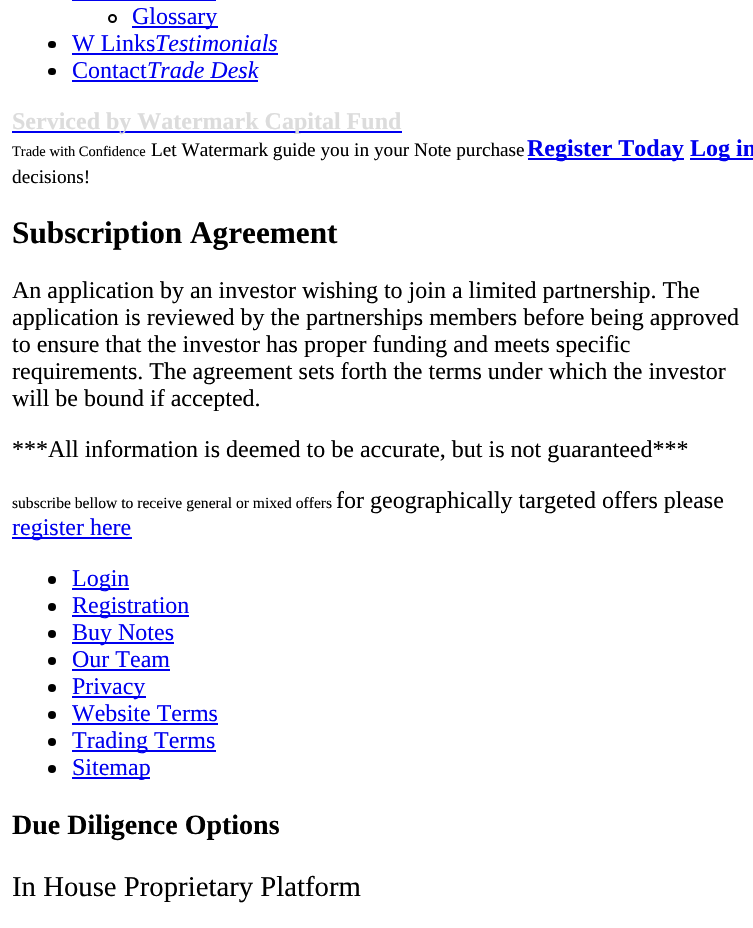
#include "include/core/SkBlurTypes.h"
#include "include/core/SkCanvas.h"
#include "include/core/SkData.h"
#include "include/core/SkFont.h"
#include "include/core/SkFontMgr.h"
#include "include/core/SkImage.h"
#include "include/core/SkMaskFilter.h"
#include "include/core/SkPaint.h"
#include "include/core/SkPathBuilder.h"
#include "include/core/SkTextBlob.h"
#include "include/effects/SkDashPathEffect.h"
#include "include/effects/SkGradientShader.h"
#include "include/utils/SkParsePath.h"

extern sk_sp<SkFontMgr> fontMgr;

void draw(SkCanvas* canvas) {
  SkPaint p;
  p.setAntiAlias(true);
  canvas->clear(SK_ColorWHITE);
  p.setColor(SkColorSetRGB(0, 0, 238));
  canvas->drawRect(SkRect::MakeLTRB(72, 0, 216, 1), p);
  p.setStyle(SkPaint::kStroke_Style);
  p.setStrokeWidth(2);
  p.setColor(SK_ColorBLACK);
  canvas->drawCircle(112.5f, 18.5f, 3.5f, p);
  p.setStyle(SkPaint::kFill_Style);
  p.setColor(SkColorSetRGB(0, 0, 238));
  canvas->drawRect(SkRect::MakeLTRB(132, 26, 218, 28), p);
  p.setColor(SK_ColorBLACK);
  canvas->drawRoundRect(SkRect::MakeLTRB(48, 41, 56, 48), 3.5f, 3.5f, p);
  p.setColor(SkColorSetRGB(0, 0, 238));
  canvas->drawRect(SkRect::MakeLTRB(72, 53, 278, 55), p);
  p.setColor(SK_ColorBLACK);
  canvas->drawRoundRect(SkRect::MakeLTRB(48, 68, 56, 75), 3.5f, 3.5f, p);
  p.setColor(SkColorSetRGB(0, 0, 238));
  canvas->drawRect(SkRect::MakeLTRB(72, 80, 258, 82), p);
  canvas->drawRect(SkRect::MakeLTRB(12, 131, 402, 133), p);
  canvas->drawRect(SkRect::MakeLTRB(528, 158, 684, 160), p);
  canvas->drawRect(SkRect::MakeLTRB(690, 158, 753, 160), p);
  canvas->drawRect(SkRect::MakeLTRB(12, 537, 132, 539), p);
  p.setColor(SK_ColorBLACK);
  canvas->drawCircle(52, 580, 4, p);
  p.setColor(SkColorSetRGB(0, 0, 238));
  canvas->drawRect(SkRect::MakeLTRB(72, 588, 129, 590), p);
  p.setColor(SK_ColorBLACK);
  canvas->drawCircle(52, 607, 4, p);
  p.setColor(SkColorSetRGB(0, 0, 238));
  canvas->drawRect(SkRect::MakeLTRB(72, 615, 189, 617), p);
  p.setColor(SK_ColorBLACK);
  canvas->drawCircle(52, 634, 4, p);
  p.setColor(SkColorSetRGB(0, 0, 238));
  canvas->drawRect(SkRect::MakeLTRB(72, 642, 174, 644), p);
  p.setColor(SK_ColorBLACK);
  canvas->drawCircle(52, 661, 4, p);
  p.setColor(SkColorSetRGB(0, 0, 238));
  canvas->drawRect(SkRect::MakeLTRB(72, 669, 170, 671), p);
  p.setColor(SK_ColorBLACK);
  canvas->drawCircle(52, 688, 4, p);
  p.setColor(SkColorSetRGB(0, 0, 238));
  canvas->drawRect(SkRect::MakeLTRB(72, 696, 146, 698), p);
  p.setColor(SK_ColorBLACK);
  canvas->drawCircle(52, 715, 4, p);
  p.setColor(SkColorSetRGB(0, 0, 238));
  canvas->drawRect(SkRect::MakeLTRB(72, 723, 218, 725), p);
  p.setColor(SK_ColorBLACK);
  canvas->drawCircle(52, 742, 4, p);
  p.setColor(SkColorSetRGB(0, 0, 238));
  canvas->drawRect(SkRect::MakeLTRB(72, 750, 216, 752), p);
  p.setColor(SK_ColorBLACK);
  canvas->drawCircle(52, 769, 4, p);
  p.setColor(SkColorSetRGB(0, 0, 238));
  canvas->drawRect(SkRect::MakeLTRB(72, 777, 150, 779), p);
  SkFont font1(fontMgr->matchFamilyStyle("Liberation Serif", SkFontStyle::Normal()), 24);
  font1.setSubpixel(true);
  canvas->drawString("Glossary", 132, 24, font1, p);
  canvas->drawString("W Links", 72, 51, font1, p);
  SkFont font2(fontMgr->matchFamilyStyle("Liberation Serif", SkFontStyle::Italic()), 24);
  font2.setSubpixel(true);
  canvas->drawString("Testimonials", 155, 51, font2, p);
  canvas->drawString("Contact", 72, 78, font1, p);
  canvas->drawString("Trade Desk", 147, 78, font2, p);
  SkFont font3(fontMgr->matchFamilyStyle("Liberation Serif", SkFontStyle::Bold()), 24);
  font3.setSubpixel(true);
  p.setColor(SkColorSetRGB(220, 220, 220));
  canvas->drawString("Serviced by Watermark Capital Fund", 12, 129, font3, p);
  p.setColor(SkColorSetRGB(0, 0, 238));
  canvas->drawString("Register Today", 527, 156, font3, p);
  canvas->drawString("Log in", 690, 156, font3, p);
  SkFont font4(fontMgr->matchFamilyStyle("Liberation Serif", SkFontStyle::Normal()), 14.5f);
  font4.setSubpixel(true);
  p.setColor(SK_ColorBLACK);
  canvas->drawString("Trade with Confidence", 12, 156, font4, p);
  SkFont font5(fontMgr->matchFamilyStyle("Liberation Serif", SkFontStyle::Normal()), 19.25f);
  font5.setSubpixel(true);
  canvas->drawString("Let Watermark guide you in your Note purchase", 151, 156, font5, p);
  canvas->drawString("decisions!", 12, 183, font5, p);
  SkFont font6(fontMgr->matchFamilyStyle("Liberation Serif", SkFontStyle::Bold()), 31.25f);
  font6.setSubpixel(true);
  canvas->drawString("Subscription Agreement", 12, 243, font6, p);
  canvas->drawString("An application by an investor wishing to join a limited partnership. The", 12, 298, font1, p);
  canvas->drawString("application is reviewed by the partnerships members before being approved", 12, 325, font1, p);
  canvas->drawString("to ensure that the investor has proper funding and meets specific", 12, 352, font1, p);
  canvas->drawString("requirements. The agreement sets forth the terms under which the investor", 12, 379, font1, p);
  canvas->drawString("will be bound if accepted.", 12, 406, font1, p);
  canvas->drawString("***All information is deemed to be accurate, but is not guaranteed***", 12, 457, font1, p);
  SkFont font7(fontMgr->matchFamilyStyle("Liberation Serif", SkFontStyle::Normal()), 15.6f);
  font7.setSubpixel(true);
  canvas->drawString("subscribe bellow to receive general or mixed offers", 12, 508, font7, p);
  canvas->drawString("for geographically targeted offers please", 336, 508, font1, p);
  p.setColor(SkColorSetRGB(0, 0, 238));
  canvas->drawString("register here", 12, 535, font1, p);
  canvas->drawString("Login", 72, 586, font1, p);
  canvas->drawString("Registration", 72, 613, font1, p);
  canvas->drawString("Buy Notes", 72, 640, font1, p);
  canvas->drawString("Our Team", 72, 667, font1, p);
  canvas->drawString("Privacy", 72, 694, font1, p);
  canvas->drawString("Website Terms", 72, 721, font1, p);
  canvas->drawString("Trading Terms", 72, 748, font1, p);
  canvas->drawString("Sitemap", 72, 775, font1, p);
  SkFont font8(fontMgr->matchFamilyStyle("Liberation Serif", SkFontStyle::Bold()), 28);
  font8.setSubpixel(true);
  p.setColor(SK_ColorBLACK);
  canvas->drawString("Due Diligence Options", 12, 834, font8, p);
  SkFont font9(fontMgr->matchFamilyStyle("Liberation Serif", SkFontStyle::Normal()), 28.75f);
  font9.setSubpixel(true);
  canvas->drawString("In House Proprietary Platform", 12, 896, font9, p);
}
